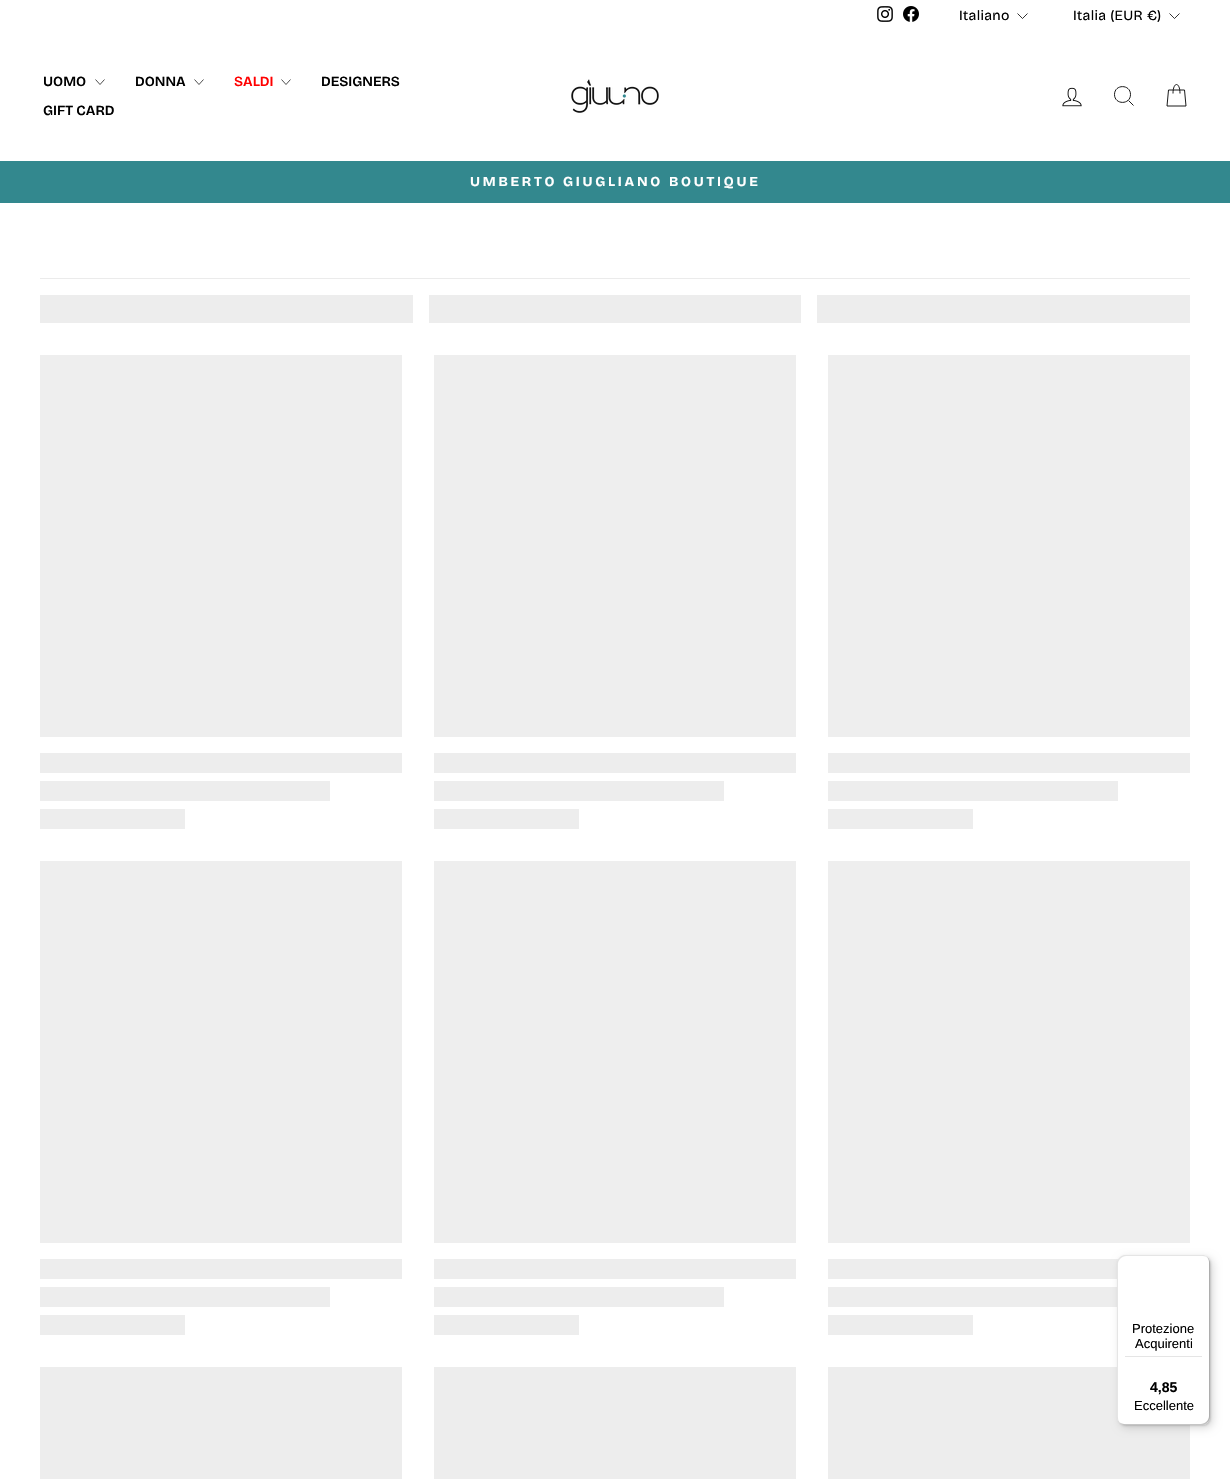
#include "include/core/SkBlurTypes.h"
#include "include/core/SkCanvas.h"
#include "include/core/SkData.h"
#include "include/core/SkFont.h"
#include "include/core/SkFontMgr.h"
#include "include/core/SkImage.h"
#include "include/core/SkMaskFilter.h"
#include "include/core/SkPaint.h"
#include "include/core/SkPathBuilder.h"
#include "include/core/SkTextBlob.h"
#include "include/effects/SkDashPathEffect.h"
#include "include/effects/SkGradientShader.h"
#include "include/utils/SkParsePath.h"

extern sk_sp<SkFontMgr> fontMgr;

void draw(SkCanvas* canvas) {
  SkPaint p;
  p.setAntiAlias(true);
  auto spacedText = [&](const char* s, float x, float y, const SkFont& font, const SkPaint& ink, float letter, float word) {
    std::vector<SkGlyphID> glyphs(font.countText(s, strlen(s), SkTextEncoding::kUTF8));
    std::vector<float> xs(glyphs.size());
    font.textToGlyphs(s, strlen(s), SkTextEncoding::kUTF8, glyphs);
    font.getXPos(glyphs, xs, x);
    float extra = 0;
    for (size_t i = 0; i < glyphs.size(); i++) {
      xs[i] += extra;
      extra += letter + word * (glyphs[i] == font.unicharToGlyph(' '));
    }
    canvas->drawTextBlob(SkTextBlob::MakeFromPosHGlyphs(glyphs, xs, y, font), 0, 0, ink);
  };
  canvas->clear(SK_ColorWHITE);
  canvas->drawImageRect(SkImages::DeferredFromEncodedData(SkData::MakeFromFileName("images/1.png")), SkRect::MakeLTRB(877, 6, 893, 22), SkSamplingOptions());
  canvas->drawImageRect(SkImages::DeferredFromEncodedData(SkData::MakeFromFileName("images/2.png")), SkRect::MakeLTRB(903, 6, 919, 22), SkSamplingOptions());
  p.setStyle(SkPaint::kStroke_Style);
  p.setStrokeWidth(0.8f);
  p.setColor(SK_ColorBLACK);
  canvas->drawPath(SkPathBuilder().moveTo(1017.5f, 13.5f).lineTo(1022.5f, 18.5f).lineTo(1027.5f, 13.5f).detach(), p);
  canvas->drawPath(SkPathBuilder().moveTo(1169.5f, 13.5f).lineTo(1174.5f, 18.5f).lineTo(1179.5f, 13.5f).detach(), p);
  p.setStrokeWidth(0.7f);
  canvas->drawPath(SkPathBuilder().moveTo(95.5f, 79.5f).lineTo(100, 84.5f).lineTo(104.5f, 79.5f).detach(), p);
  canvas->drawPath(SkPathBuilder().moveTo(194.5f, 79.5f).lineTo(199, 84.5f).lineTo(203.5f, 79.5f).detach(), p);
  canvas->drawPath(SkPathBuilder().moveTo(281.5f, 79.5f).lineTo(286, 84.5f).lineTo(290.5f, 79.5f).detach(), p);
  canvas->drawImageRect(SkImages::DeferredFromEncodedData(SkData::MakeFromFileName("images/3.png")), SkRect::MakeLTRB(571, 79, 659, 113), SkSamplingOptions());
  canvas->drawImageRect(SkImages::DeferredFromEncodedData(SkData::MakeFromFileName("images/4.png")), SkRect::MakeLTRB(1062, 87, 1082, 107), SkSamplingOptions());
  p.setStrokeWidth(0.9f);
  canvas->drawPath(SkPathBuilder().moveTo(1130.5f, 94.5f).cubicTo(1130.5f, 105, 1114.5f, 105, 1114.5f, 94.5f).cubicTo(1114.5f, 84, 1130.5f, 84, 1130.5f, 94.5f).close().moveTo(1133.5f, 105.5f).lineTo(1128.5f, 100.5f).detach(), p);
  canvas->drawPath(SkPathBuilder().moveTo(1173, 93.5f).cubicTo(1173, 81.5f, 1180, 81.5f, 1180, 93.5f).moveTo(1168.5f, 90).lineTo(1184.5f, 90).lineTo(1186, 106).lineTo(1167, 106).close().detach(), p);
  p.setStyle(SkPaint::kFill_Style);
  p.setColor(SkColorSetRGB(51, 136, 142));
  canvas->drawRect(SkRect::MakeLTRB(0, 161, 1230, 203), p);
  p.setColor(SkColorSetRGB(235, 235, 235));
  canvas->drawRect(SkRect::MakeLTRB(40, 278, 1190, 279), p);
  p.setColor(SkColorSetRGB(237, 237, 237));
  canvas->drawRect(SkRect::MakeLTRB(40, 295, 413, 323), p);
  canvas->drawRect(SkRect::MakeLTRB(429, 295, 801, 323), p);
  canvas->drawRect(SkRect::MakeLTRB(817, 295, 1190, 323), p);
  p.setColor(SkColorSetRGB(238, 238, 238));
  canvas->drawRect(SkRect::MakeLTRB(40, 355, 402, 737), p);
  p.setColor(SkColorSetRGB(237, 237, 237));
  canvas->drawRect(SkRect::MakeLTRB(40, 753, 402, 773), p);
  canvas->drawRect(SkRect::MakeLTRB(40, 781, 330, 801), p);
  canvas->drawRect(SkRect::MakeLTRB(40, 809, 185, 829), p);
  p.setColor(SkColorSetRGB(238, 238, 238));
  canvas->drawRect(SkRect::MakeLTRB(434, 355, 796, 737), p);
  p.setColor(SkColorSetRGB(237, 237, 237));
  canvas->drawRect(SkRect::MakeLTRB(434, 753, 796, 773), p);
  canvas->drawRect(SkRect::MakeLTRB(434, 781, 724, 801), p);
  canvas->drawRect(SkRect::MakeLTRB(434, 809, 579, 829), p);
  p.setColor(SkColorSetRGB(238, 238, 238));
  canvas->drawRect(SkRect::MakeLTRB(828, 355, 1190, 737), p);
  p.setColor(SkColorSetRGB(237, 237, 237));
  canvas->drawRect(SkRect::MakeLTRB(828, 753, 1190, 773), p);
  canvas->drawRect(SkRect::MakeLTRB(828, 781, 1118, 801), p);
  canvas->drawRect(SkRect::MakeLTRB(828, 809, 973, 829), p);
  p.setColor(SkColorSetRGB(238, 238, 238));
  canvas->drawRect(SkRect::MakeLTRB(40, 861, 402, 1243), p);
  p.setColor(SkColorSetRGB(237, 237, 237));
  canvas->drawRect(SkRect::MakeLTRB(40, 1259, 402, 1279), p);
  canvas->drawRect(SkRect::MakeLTRB(40, 1287, 330, 1307), p);
  canvas->drawRect(SkRect::MakeLTRB(40, 1315, 185, 1335), p);
  p.setColor(SkColorSetRGB(238, 238, 238));
  canvas->drawRect(SkRect::MakeLTRB(434, 861, 796, 1243), p);
  p.setColor(SkColorSetRGB(237, 237, 237));
  canvas->drawRect(SkRect::MakeLTRB(434, 1259, 796, 1279), p);
  canvas->drawRect(SkRect::MakeLTRB(434, 1287, 724, 1307), p);
  canvas->drawRect(SkRect::MakeLTRB(434, 1315, 579, 1335), p);
  p.setColor(SkColorSetRGB(238, 238, 238));
  canvas->drawRect(SkRect::MakeLTRB(828, 861, 1190, 1243), p);
  p.setColor(SkColorSetRGB(237, 237, 237));
  canvas->drawRect(SkRect::MakeLTRB(828, 1259, 1119, 1279), p);
  canvas->drawRect(SkRect::MakeLTRB(828, 1287, 1117, 1307), p);
  canvas->drawRect(SkRect::MakeLTRB(828, 1315, 973, 1335), p);
  canvas->drawRect(SkRect::MakeLTRB(40, 1367, 402, 1479), p);
  canvas->drawRect(SkRect::MakeLTRB(434, 1367, 796, 1479), p);
  canvas->drawRect(SkRect::MakeLTRB(828, 1367, 1190, 1479), p);
  p.setColor(SkColorSetARGB(38, 0, 0, 0));
  p.setMaskFilter(SkMaskFilter::MakeBlur(kNormal_SkBlurStyle, 4));
  canvas->drawRoundRect(SkRect::MakeLTRB(1120, 1258, 1213, 1428), 8, 8, p);
  p.setMaskFilter(nullptr);
  p.setMaskFilter(SkMaskFilter::MakeBlur(kNormal_SkBlurStyle, 1));
  canvas->drawRoundRect(SkRect::MakeLTRB(1118, 1256, 1211, 1426), 8, 8, p);
  p.setMaskFilter(nullptr);
  p.setColor(SK_ColorWHITE);
  canvas->drawRoundRect(SkRect::MakeLTRB(1117, 1255, 1210, 1425), 8, 8, p);
  p.setColor(SkColorSetARGB(26, 0, 0, 0));
  canvas->drawPath(SkPathBuilder().moveTo(1126, 1256).lineTo(1203, 1256).cubicTo(1205, 1256, 1207, 1257, 1209, 1259).cubicTo(1207, 1257, 1205, 1255, 1202, 1255).lineTo(1125, 1255).cubicTo(1121, 1255, 1117, 1259, 1117, 1263).lineTo(1117, 1417).cubicTo(1117, 1420, 1119, 1422, 1121, 1424).cubicTo(1119, 1422, 1118, 1420, 1118, 1418).lineTo(1118, 1264).cubicTo(1118, 1260, 1122, 1256, 1126, 1256).close().detach(), p);
  p.setColor(SkColorSetARGB(51, 0, 0, 0));
  canvas->drawPath(SkPathBuilder().moveTo(1118, 1421).cubicTo(1120, 1423, 1122, 1425, 1125, 1425).lineTo(1202, 1425).cubicTo(1206, 1425, 1210, 1421, 1210, 1417).lineTo(1210, 1263).cubicTo(1210, 1260, 1208, 1258, 1206, 1256).cubicTo(1208, 1258, 1209, 1260, 1209, 1262).lineTo(1209, 1416).cubicTo(1209, 1420, 1205, 1424, 1201, 1424).lineTo(1124, 1424).cubicTo(1122, 1424, 1120, 1423, 1118, 1421).close().detach(), p);
  p.setColor(SkColorSetARGB(51, 50, 50, 50));
  canvas->drawPath(SkPathBuilder().moveTo(1119, 1422).cubicTo(1120, 1424, 1123, 1425, 1125, 1425).lineTo(1202, 1425).cubicTo(1206, 1425, 1210, 1421, 1210, 1417).lineTo(1210, 1263).cubicTo(1210, 1261, 1209, 1258, 1207, 1257).cubicTo(1208, 1258, 1209, 1260, 1209, 1262).lineTo(1209, 1416).cubicTo(1209, 1421, 1206, 1424, 1201, 1424).lineTo(1124, 1424).cubicTo(1122, 1424, 1120, 1423, 1119, 1422).close().detach(), p);
  p.setColor(SkColorSetARGB(77, 255, 255, 255));
  canvas->drawPath(SkPathBuilder().moveTo(1119, 1422).cubicTo(1120, 1424, 1123, 1425, 1125, 1425).lineTo(1202, 1425).cubicTo(1206, 1425, 1210, 1421, 1210, 1417).lineTo(1210, 1416).cubicTo(1210, 1421, 1206, 1424, 1202, 1424).lineTo(1124, 1424).cubicTo(1122, 1424, 1120, 1423, 1119, 1422).close().detach(), p);
  p.setColor(SkColorSetRGB(229, 229, 229));
  canvas->drawRect(SkRect::MakeLTRB(1125, 1356, 1202, 1357), p);
  SkFont font1(fontMgr->matchFamilyStyle("Bricolage Grotesque", SkFontStyle::Normal()), 14);
  font1.setSubpixel(true);
  p.setColor(SK_ColorBLACK);
  spacedText("Italiano", 959, 20, font1, p, 0.3f, 0);
  spacedText("Italia (EUR €)", 1073, 20, font1, p, 0.3f, 0);
  SkFont font2(fontMgr->matchFamilyStyle("Bricolage Grotesque", SkFontStyle(600, SkFontStyle::kNormal_Width, SkFontStyle::kUpright_Slant)), 14);
  font2.setSubpixel(true);
  canvas->drawString("UOMO", 43, 86, font2, p);
  canvas->drawString("DONNA", 135, 86, font2, p);
  p.setColor(SkColorSetRGB(255, 0, 0));
  canvas->drawString("SALDI", 234, 86, font2, p);
  p.setColor(SK_ColorBLACK);
  canvas->drawString("DESIGNERS", 321, 86, font2, p);
  canvas->drawString("GIFT CARD", 43, 115, font2, p);
  SkFont font3(fontMgr->matchFamilyStyle("Bricolage Grotesque", SkFontStyle::Bold()), 13.75f);
  font3.setSubpixel(true);
  p.setColor(SK_ColorWHITE);
  spacedText("UMBERTO GIUGLIANO BOUTIQUE", 470, 186, font3, p, 2.75f, 0);
  SkFont font4(fontMgr->matchFamilyStyle("Liberation Sans", SkFontStyle::Normal()), 13);
  font4.setSubpixel(true);
  p.setColor(SK_ColorBLACK);
  canvas->drawString("Protezione", 1132, 1333, font4, p);
  canvas->drawString("Acquirenti", 1135, 1348, font4, p);
  SkFont font5(fontMgr->matchFamilyStyle("Liberation Sans", SkFontStyle::Bold()), 14);
  font5.setSubpixel(true);
  canvas->drawString("4,85", 1150, 1392, font5, p);
  canvas->drawString("Eccellente", 1134, 1410, font4, p);
}
